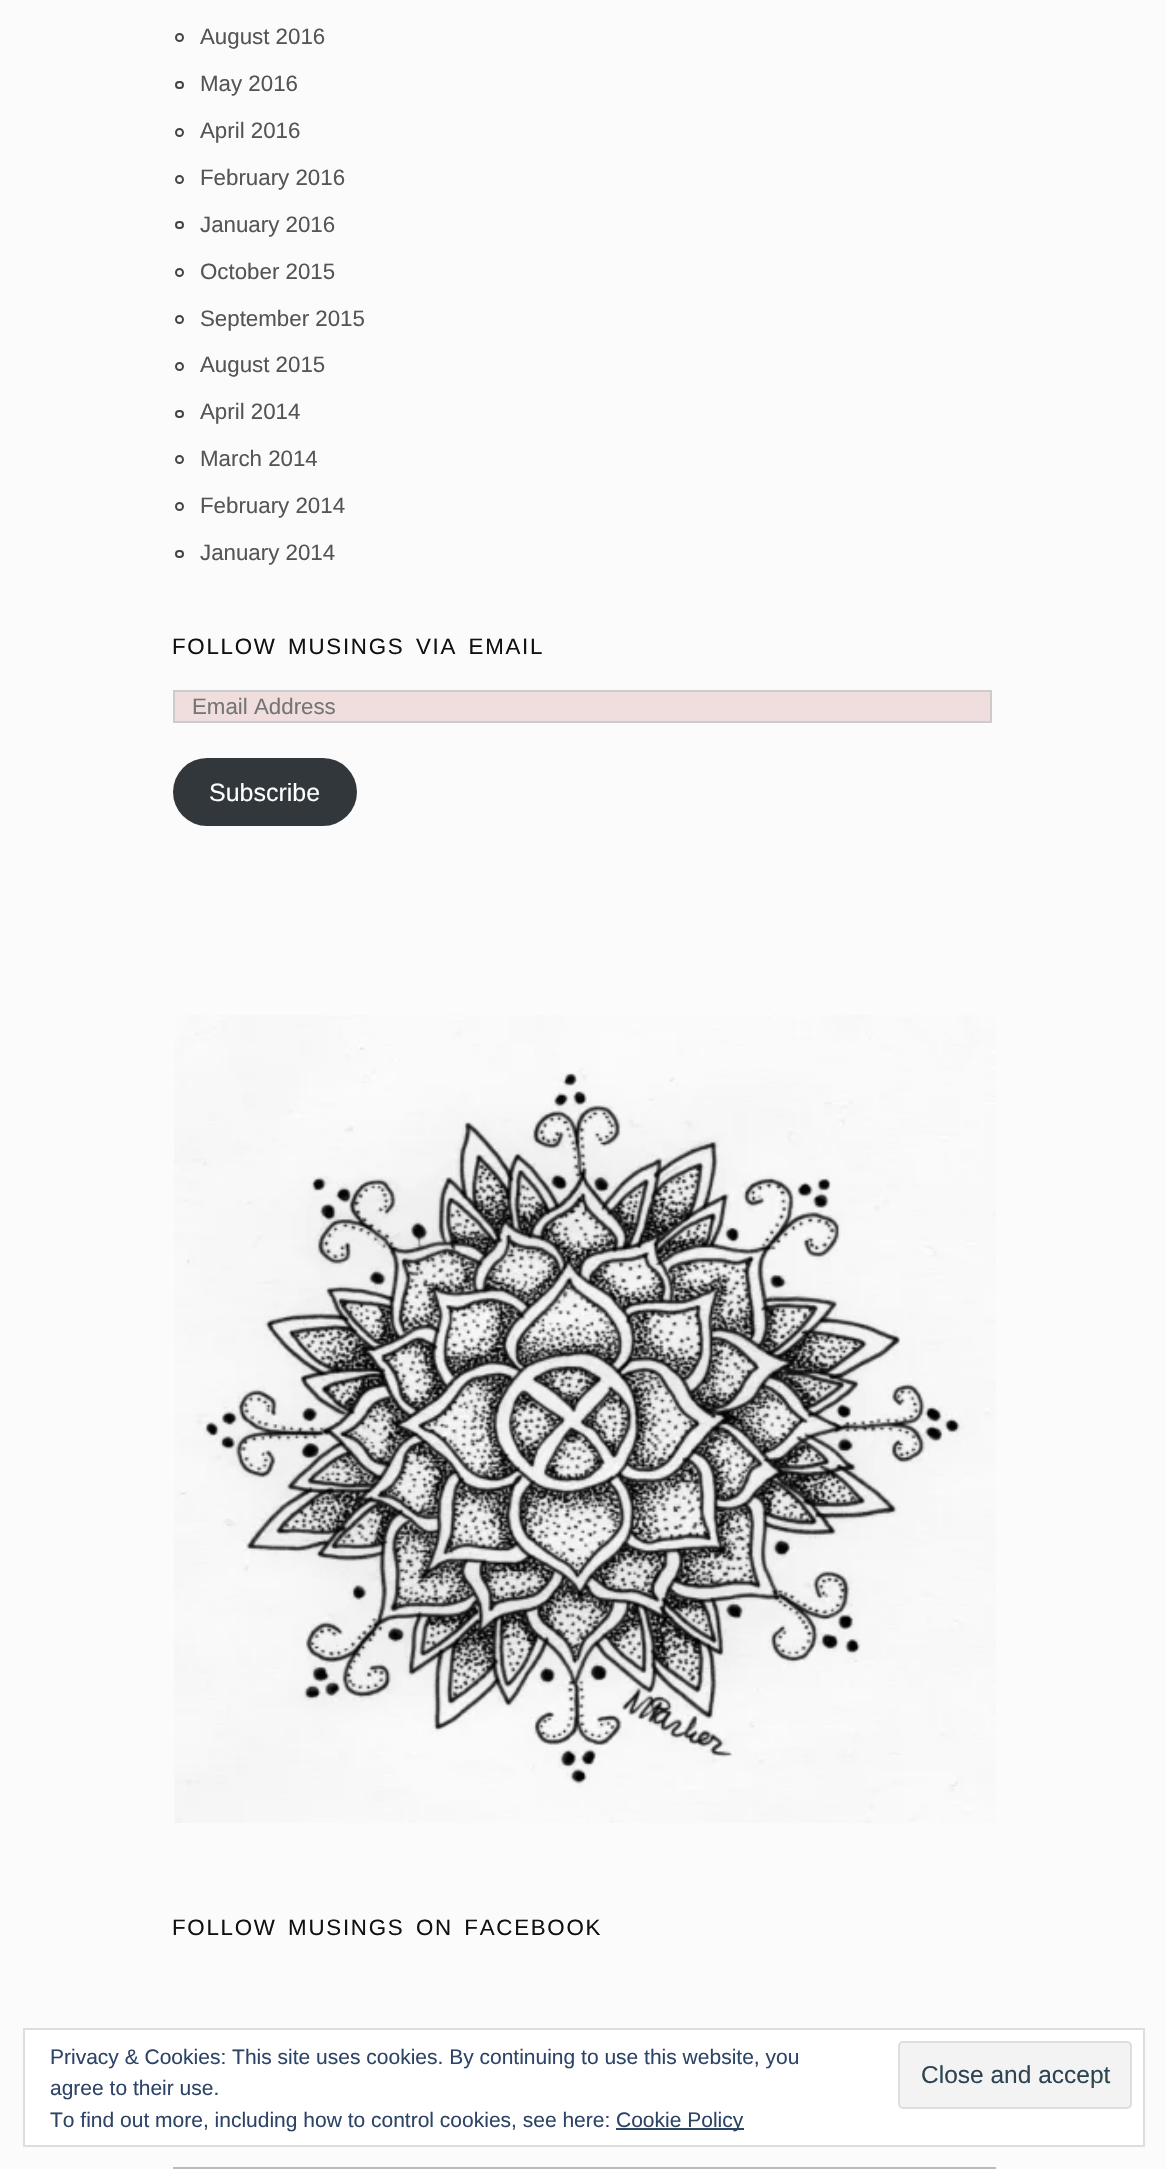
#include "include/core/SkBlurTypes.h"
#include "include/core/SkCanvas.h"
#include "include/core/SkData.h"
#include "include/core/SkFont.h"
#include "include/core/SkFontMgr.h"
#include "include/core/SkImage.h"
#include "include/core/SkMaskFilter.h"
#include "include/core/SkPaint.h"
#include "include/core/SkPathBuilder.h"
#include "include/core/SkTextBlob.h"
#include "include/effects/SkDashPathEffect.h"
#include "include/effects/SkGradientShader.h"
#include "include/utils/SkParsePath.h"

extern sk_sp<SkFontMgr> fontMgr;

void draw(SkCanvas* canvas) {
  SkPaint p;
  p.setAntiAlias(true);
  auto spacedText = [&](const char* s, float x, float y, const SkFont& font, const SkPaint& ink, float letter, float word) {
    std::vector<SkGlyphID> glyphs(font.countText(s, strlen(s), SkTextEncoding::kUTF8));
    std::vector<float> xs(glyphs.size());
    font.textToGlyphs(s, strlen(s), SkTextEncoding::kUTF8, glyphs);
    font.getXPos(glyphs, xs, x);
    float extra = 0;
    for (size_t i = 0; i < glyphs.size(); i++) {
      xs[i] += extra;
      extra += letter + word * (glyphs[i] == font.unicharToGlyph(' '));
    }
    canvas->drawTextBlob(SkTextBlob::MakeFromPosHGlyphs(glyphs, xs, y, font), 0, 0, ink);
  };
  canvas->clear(SkColorSetRGB(251, 251, 251));
  p.setStyle(SkPaint::kStroke_Style);
  p.setStrokeWidth(2);
  p.setColor(SkColorSetRGB(68, 68, 68));
  canvas->drawCircle(179.5f, 37.5f, 3.5f, p);
  canvas->drawRoundRect(SkRect::MakeLTRB(176, 82, 183, 88), 3, 3, p);
  canvas->drawCircle(179.5f, 132.5f, 3.5f, p);
  canvas->drawCircle(179.5f, 179.5f, 3.5f, p);
  canvas->drawRoundRect(SkRect::MakeLTRB(176, 222, 183, 228), 3, 3, p);
  canvas->drawCircle(179.5f, 272.5f, 3.5f, p);
  canvas->drawCircle(179.5f, 319.5f, 3.5f, p);
  canvas->drawCircle(179.5f, 366.5f, 3.5f, p);
  canvas->drawRoundRect(SkRect::MakeLTRB(176, 411, 183, 417), 3, 3, p);
  canvas->drawCircle(179.5f, 459.5f, 3.5f, p);
  canvas->drawCircle(179.5f, 506.5f, 3.5f, p);
  canvas->drawRoundRect(SkRect::MakeLTRB(176, 551, 183, 557), 3, 3, p);
  p.setStyle(SkPaint::kFill_Style);
  p.setColor(SkColorSetRGB(240, 221, 221));
  canvas->drawRect(SkRect::MakeLTRB(174, 691, 991, 722), p);
  p.setStyle(SkPaint::kStroke_Style);
  p.setColor(SkColorSetRGB(204, 204, 204));
  canvas->drawRect(SkRect::MakeLTRB(174, 691, 991, 722), p);
  p.setStyle(SkPaint::kFill_Style);
  p.setColor(SkColorSetRGB(50, 55, 60));
  canvas->drawRoundRect(SkRect::MakeLTRB(173, 758, 357, 826), 34, 34, p);
  canvas->drawImageRect(SkImages::DeferredFromEncodedData(SkData::MakeFromFileName("images/1.png")), SkRect::MakeLTRB(174, 1015, 996, 1823), SkSamplingOptions());
  p.setColor(SkColorSetRGB(187, 187, 187));
  canvas->drawRect(SkRect::MakeLTRB(173, 2167, 996, 2169), p);
  p.setColor(SK_ColorWHITE);
  canvas->drawRect(SkRect::MakeLTRB(24, 2029, 1144, 2146), p);
  p.setStyle(SkPaint::kStroke_Style);
  p.setColor(SkColorSetRGB(222, 222, 222));
  canvas->drawRect(SkRect::MakeLTRB(24, 2029, 1144, 2146), p);
  p.setStyle(SkPaint::kFill_Style);
  p.setColor(SkColorSetRGB(243, 243, 243));
  canvas->drawRoundRect(SkRect::MakeLTRB(899, 2042, 1131, 2108), 4, 4, p);
  p.setStyle(SkPaint::kStroke_Style);
  p.setColor(SkColorSetRGB(222, 222, 222));
  canvas->drawRoundRect(SkRect::MakeLTRB(899, 2042, 1131, 2108), 4, 4, p);
  p.setStyle(SkPaint::kFill_Style);
  p.setColor(SkColorSetRGB(46, 68, 103));
  canvas->drawRect(SkRect::MakeLTRB(616, 2128, 744, 2130), p);
  SkFont font1(fontMgr->matchFamilyStyle("Liberation Sans", SkFontStyle::Normal()), 22.3f);
  font1.setSubpixel(true);
  p.setColor(SkColorSetRGB(85, 85, 85));
  canvas->drawString("August 2016", 200, 44, font1, p);
  canvas->drawString("May 2016", 200, 91, font1, p);
  canvas->drawString("April 2016", 200, 138, font1, p);
  canvas->drawString("February 2016", 200, 185, font1, p);
  canvas->drawString("January 2016", 200, 232, font1, p);
  canvas->drawString("October 2015", 200, 279, font1, p);
  canvas->drawString("September 2015", 200, 326, font1, p);
  canvas->drawString("August 2015", 200, 372, font1, p);
  canvas->drawString("April 2014", 200, 419, font1, p);
  canvas->drawString("March 2014", 200, 466, font1, p);
  canvas->drawString("February 2014", 200, 513, font1, p);
  canvas->drawString("January 2014", 200, 560, font1, p);
  p.setColor(SkColorSetRGB(17, 17, 17));
  spacedText("FOLLOW MUSINGS VIA EMAIL", 172, 654, font1, p, 1.75f, 3.5f);
  p.setColor(SkColorSetRGB(117, 117, 117));
  canvas->drawString("Email Address", 192, 714, font1, p);
  SkFont font2(fontMgr->matchFamilyStyle("Liberation Sans", SkFontStyle::Normal()), 25);
  font2.setSubpixel(true);
  p.setColor(SK_ColorWHITE);
  canvas->drawString("Subscribe", 209, 801, font2, p);
  p.setColor(SkColorSetRGB(17, 17, 17));
  spacedText("FOLLOW MUSINGS ON FACEBOOK", 172, 1935, font1, p, 1.75f, 3.5f);
  SkFont font3(fontMgr->matchFamilyStyle("Liberation Sans", SkFontStyle::Normal()), 21);
  font3.setSubpixel(true);
  p.setColor(SkColorSetRGB(46, 68, 103));
  canvas->drawString("Privacy & Cookies: This site uses cookies. By continuing to use this website, you", 50, 2064, font3, p);
  canvas->drawString("agree to their use.", 50, 2095, font3, p);
  SkFont font4(fontMgr->matchFamilyStyle("Liberation Sans", SkFontStyle::Normal()), 24.5f);
  font4.setSubpixel(true);
  p.setColor(SkColorSetRGB(46, 68, 83));
  canvas->drawString("Close and accept", 921, 2083, font4, p);
  p.setColor(SkColorSetRGB(46, 68, 103));
  canvas->drawString("To find out more, including how to control cookies, see here:", 50, 2127, font3, p);
  canvas->drawString("Cookie Policy", 616, 2127, font3, p);
}
